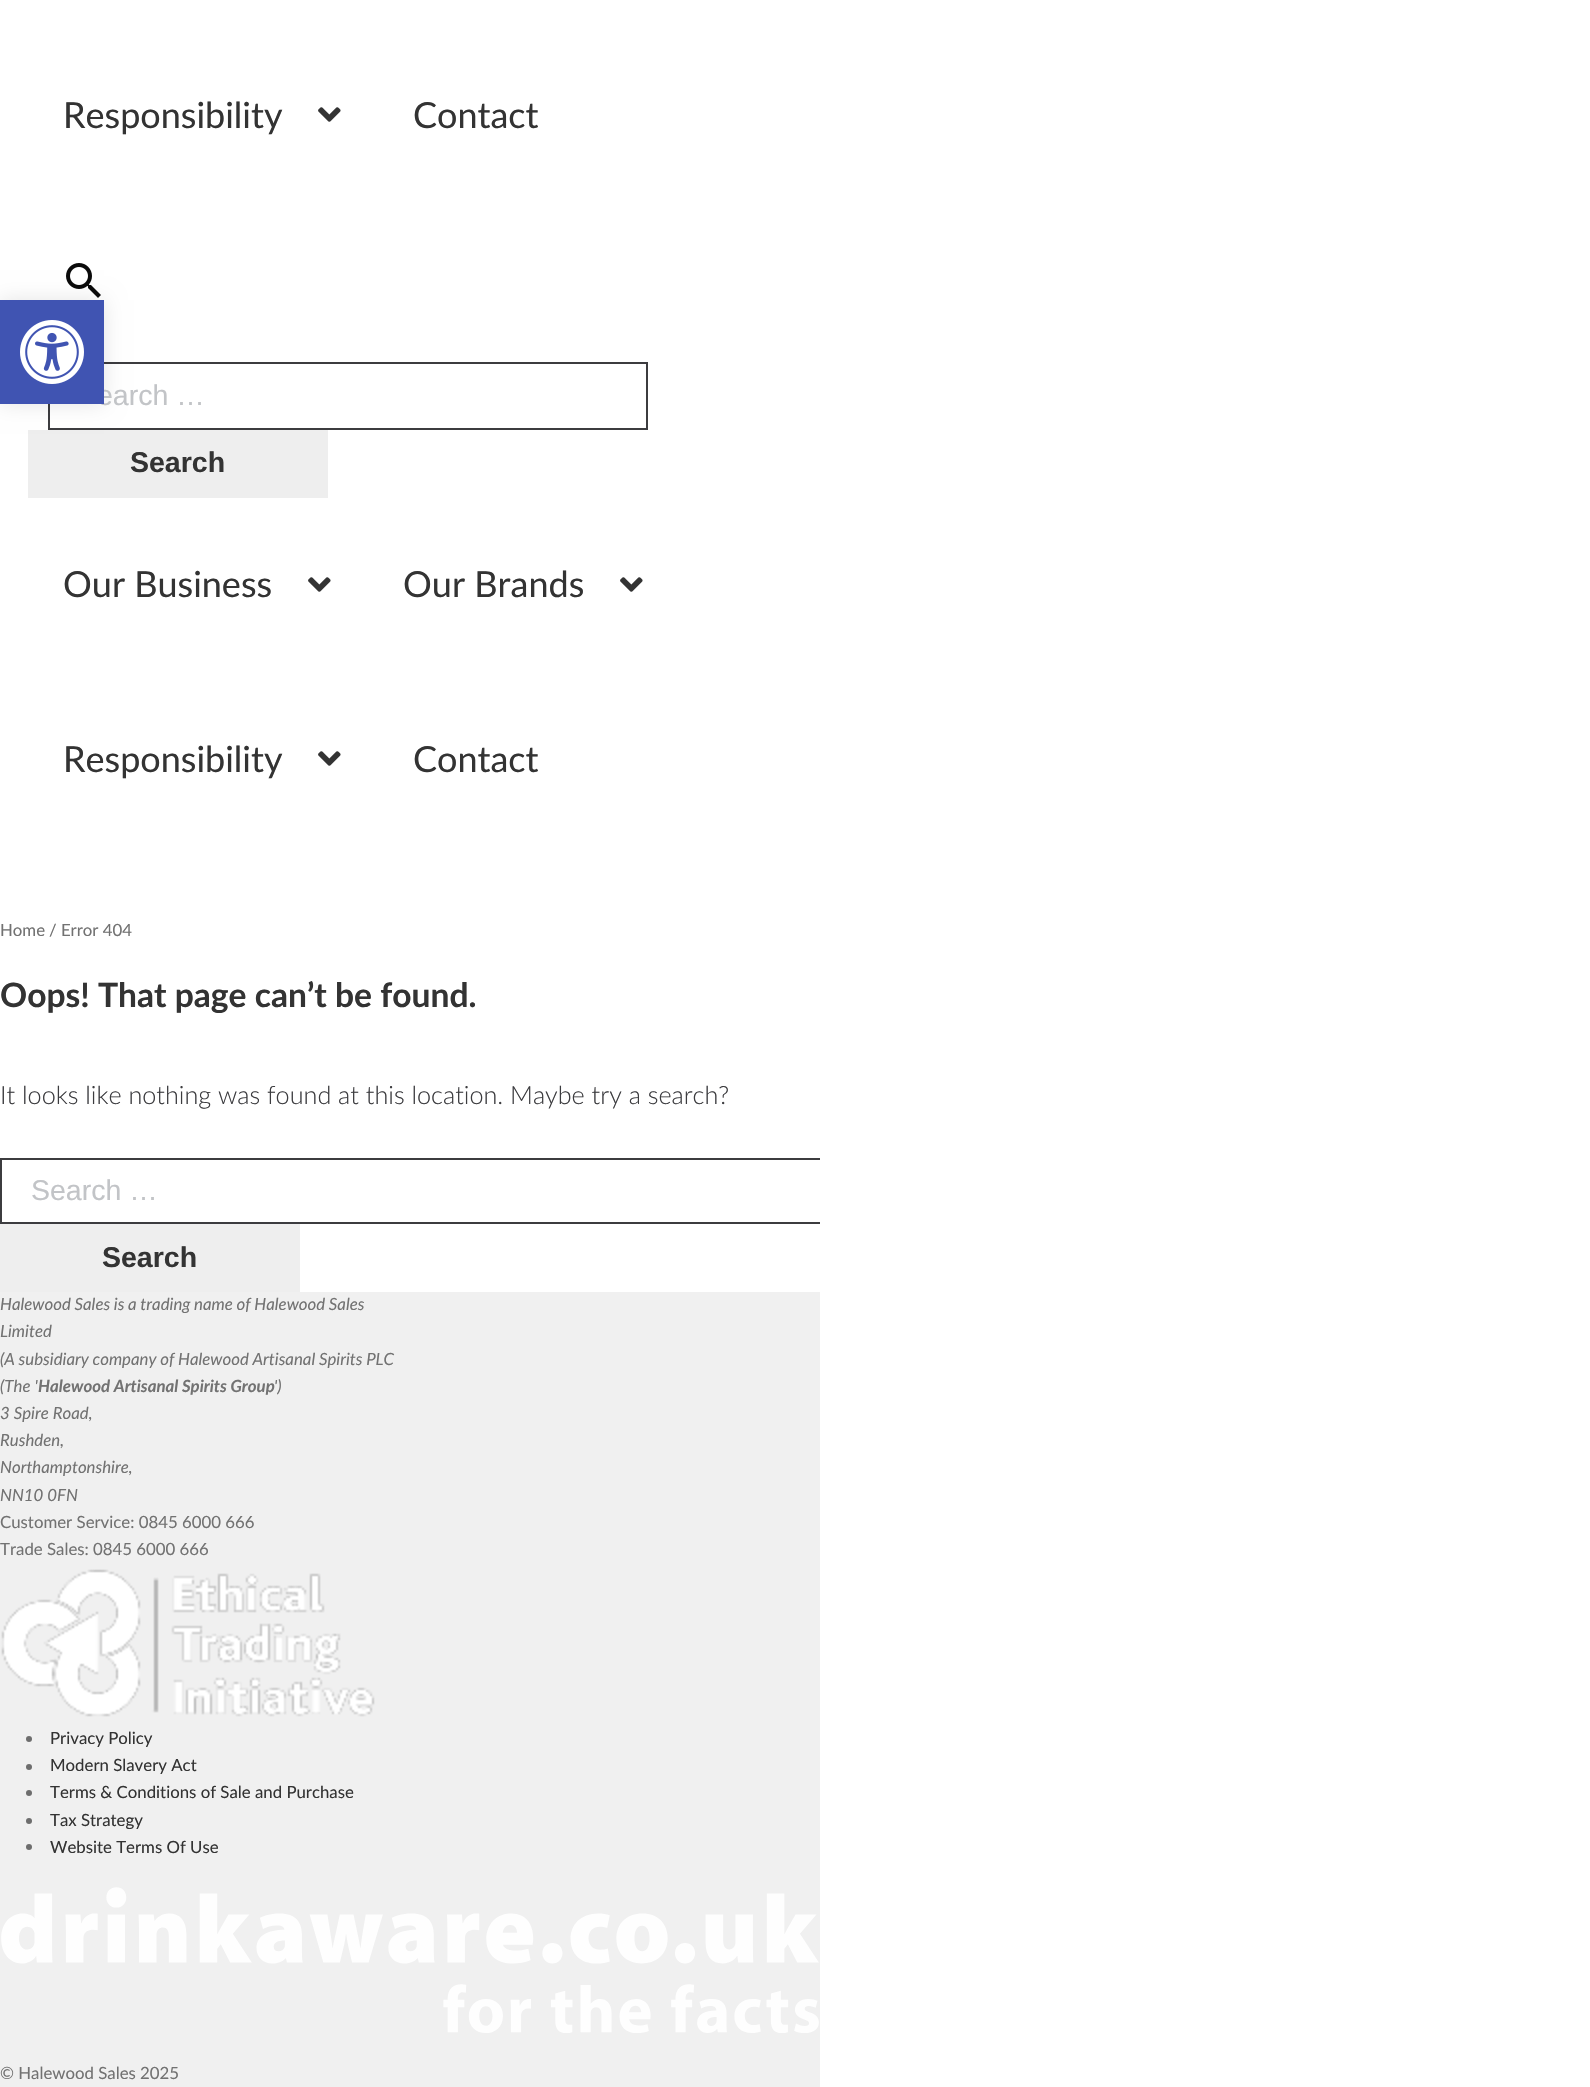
#include "include/core/SkBlurTypes.h"
#include "include/core/SkCanvas.h"
#include "include/core/SkData.h"
#include "include/core/SkFont.h"
#include "include/core/SkFontMgr.h"
#include "include/core/SkImage.h"
#include "include/core/SkMaskFilter.h"
#include "include/core/SkPaint.h"
#include "include/core/SkPathBuilder.h"
#include "include/core/SkTextBlob.h"
#include "include/effects/SkDashPathEffect.h"
#include "include/effects/SkGradientShader.h"
#include "include/utils/SkParsePath.h"

extern sk_sp<SkFontMgr> fontMgr;

void draw(SkCanvas* canvas) {
  SkPaint p;
  p.setAntiAlias(true);
  auto spacedText = [&](const char* s, float x, float y, const SkFont& font, const SkPaint& ink, float letter, float word) {
    std::vector<SkGlyphID> glyphs(font.countText(s, strlen(s), SkTextEncoding::kUTF8));
    std::vector<float> xs(glyphs.size());
    font.textToGlyphs(s, strlen(s), SkTextEncoding::kUTF8, glyphs);
    font.getXPos(glyphs, xs, x);
    float extra = 0;
    for (size_t i = 0; i < glyphs.size(); i++) {
      xs[i] += extra;
      extra += letter + word * (glyphs[i] == font.unicharToGlyph(' '));
    }
    canvas->drawTextBlob(SkTextBlob::MakeFromPosHGlyphs(glyphs, xs, y, font), 0, 0, ink);
  };
  canvas->clear(SK_ColorWHITE);
  canvas->drawImageRect(SkImages::DeferredFromEncodedData(SkData::MakeFromFileName("images/1.png")), SkRect::MakeLTRB(318, 107, 341, 122), SkSamplingOptions());
  canvas->drawImageRect(SkImages::DeferredFromEncodedData(SkData::MakeFromFileName("images/2.png")), SkRect::MakeLTRB(66, 263, 101, 298), SkSamplingOptions());
  p.setStyle(SkPaint::kStroke_Style);
  p.setStrokeWidth(2);
  p.setColor(SkColorSetRGB(60, 60, 63));
  canvas->drawRect(SkRect::MakeLTRB(49, 363, 647, 429), p);
  p.setStyle(SkPaint::kFill_Style);
  p.setColor(SkColorSetRGB(238, 238, 238));
  canvas->drawRect(SkRect::MakeLTRB(28, 430, 328, 498), p);
  canvas->drawImageRect(SkImages::DeferredFromEncodedData(SkData::MakeFromFileName("images/1.png")), SkRect::MakeLTRB(308, 577, 331, 592), SkSamplingOptions());
  canvas->drawImageRect(SkImages::DeferredFromEncodedData(SkData::MakeFromFileName("images/1.png")), SkRect::MakeLTRB(620, 577, 643, 592), SkSamplingOptions());
  canvas->drawImageRect(SkImages::DeferredFromEncodedData(SkData::MakeFromFileName("images/1.png")), SkRect::MakeLTRB(318, 751, 341, 766), SkSamplingOptions());
  canvas->save();
  canvas->clipRect(SkRect::MakeLTRB(0, 0, 820, 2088));
  p.setStyle(SkPaint::kStroke_Style);
  p.setColor(SkColorSetRGB(60, 60, 63));
  canvas->drawRect(SkRect::MakeLTRB(1, 1159, 879, 1223), p);
  canvas->restore();
  p.setStyle(SkPaint::kFill_Style);
  p.setColor(SkColorSetRGB(238, 238, 238));
  canvas->drawRect(SkRect::MakeLTRB(0, 1224, 300, 1292), p);
  p.setColor(SkColorSetRGB(240, 240, 240));
  canvas->drawRect(SkRect::MakeLTRB(0, 1292, 820, 2087), p);
  canvas->drawImageRect(SkImages::DeferredFromEncodedData(SkData::MakeFromFileName("images/3.png")), SkRect::MakeLTRB(1, 1569, 375, 1717), SkSamplingOptions());
  p.setColor(SkColorSetRGB(109, 109, 109));
  canvas->drawCircle(29, 1739, 3, p);
  canvas->drawCircle(29, 1767, 3, p);
  canvas->drawCircle(29, 1793, 3, p);
  canvas->drawCircle(29, 1821, 3, p);
  canvas->drawCircle(29, 1847, 3, p);
  canvas->drawImageRect(SkImages::DeferredFromEncodedData(SkData::MakeFromFileName("images/4.png")), SkRect::MakeLTRB(1, 1887, 819, 2033), SkSamplingOptions());
  p.setColor(SkColorSetARGB(26, 0, 0, 0));
  p.setMaskFilter(SkMaskFilter::MakeBlur(kNormal_SkBlurStyle, 10));
  canvas->drawRect(SkRect::MakeLTRB(0, 300, 104, 404), p);
  p.setMaskFilter(nullptr);
  SkFont font1(fontMgr->matchFamilyStyle("Lato", SkFontStyle::Normal()), 36);
  font1.setSubpixel(true);
  p.setColor(SkColorSetRGB(51, 51, 51));
  canvas->drawString("Responsibility", 63, 128, font1, p);
  canvas->drawString("Contact", 413, 128, font1, p);
  SkFont font2(fontMgr->matchFamilyStyle("Liberation Sans", SkFontStyle::Normal()), 28.5f);
  font2.setSubpixel(true);
  p.setColor(SkColorSetRGB(194, 196, 199));
  canvas->drawString("earch …", 97, 405, font2, p);
  SkFont font3(fontMgr->matchFamilyStyle("Liberation Sans", SkFontStyle::Bold()), 28.5f);
  font3.setSubpixel(true);
  p.setColor(SkColorSetRGB(51, 51, 51));
  canvas->drawString("Search", 130, 472, font3, p);
  canvas->drawString("Our Business", 63, 597, font1, p);
  canvas->drawString("Our Brands", 403, 597, font1, p);
  canvas->drawString("Responsibility", 63, 772, font1, p);
  canvas->drawString("Contact", 413, 772, font1, p);
  SkFont font4(fontMgr->matchFamilyStyle("Lato", SkFontStyle::Normal()), 16.8f);
  font4.setSubpixel(true);
  p.setColor(SkColorSetRGB(114, 114, 114));
  canvas->drawString("Home", 0, 936, font4, p);
  canvas->drawString("/ Error 404", 49, 936, font4, p);
  SkFont font5(fontMgr->matchFamilyStyle("Lato", SkFontStyle::Bold()), 33.6f);
  font5.setSubpixel(true);
  p.setColor(SkColorSetRGB(51, 51, 51));
  canvas->drawString("Oops! That page can’t be found.", 0, 1007, font5, p);
  SkFont font6(fontMgr->matchFamilyStyle("Lato", SkFontStyle(300, SkFontStyle::kNormal_Width, SkFontStyle::kUpright_Slant)), 25.2f);
  font6.setSubpixel(true);
  p.setColor(SkColorSetRGB(60, 60, 63));
  canvas->drawString("It looks like nothing was found at this location. Maybe try a search?", 0, 1104, font6, p);
  p.setColor(SkColorSetRGB(194, 196, 199));
  canvas->drawString("Search …", 31, 1200, font2, p);
  p.setColor(SkColorSetRGB(51, 51, 51));
  canvas->drawString("Search", 102, 1267, font3, p);
  SkFont font7(fontMgr->matchFamilyStyle("Lato", SkFontStyle::Italic()), 16.8f);
  font7.setSubpixel(true);
  p.setColor(SkColorSetRGB(114, 114, 114));
  spacedText("Halewood Sales is a trading name of Halewood Sales", 0, 1310, font7, p, 0, -0.25f);
  canvas->drawString("Limited", 0, 1337, font7, p);
  spacedText("(A subsidiary company of Halewood Artisanal Spirits PLC", 0, 1365, font7, p, 0, -0.25f);
  canvas->drawString("(The '", 0, 1392, font7, p);
  SkFont font8(fontMgr->matchFamilyStyle("Lato", SkFontStyle::BoldItalic()), 16.8f);
  font8.setSubpixel(true);
  canvas->drawString("Halewood Artisanal Spirits Group", 38, 1392, font8, p);
  canvas->drawString("')", 274, 1392, font7, p);
  canvas->drawString("3 Spire Road,", 0, 1419, font7, p);
  canvas->drawString("Rushden,", 0, 1446, font7, p);
  canvas->drawString("Northamptonshire,", 0, 1473, font7, p);
  canvas->drawString("NN10 0FN", 0, 1501, font7, p);
  canvas->drawString("Customer Service: 0845 6000 666", 0, 1528, font4, p);
  canvas->drawString("Trade Sales: 0845 6000 666", 0, 1555, font4, p);
  p.setColor(SkColorSetRGB(51, 51, 51));
  canvas->drawString("Privacy Policy", 50, 1744, font4, p);
  canvas->drawString("Modern Slavery Act", 50, 1771, font4, p);
  canvas->drawString("Terms & Conditions of Sale and Purchase", 50, 1798, font4, p);
  canvas->drawString("Tax Strategy", 50, 1826, font4, p);
  canvas->drawString("Website Terms Of Use", 50, 1853, font4, p);
  p.setColor(SkColorSetRGB(114, 114, 114));
  canvas->drawString("© Halewood Sales 2025", 0, 2079, font4, p);
  p.setColor(SkColorSetRGB(64, 84, 178));
  canvas->drawRect(SkRect::MakeLTRB(0, 300, 104, 404), p);
  canvas->drawImageRect(SkImages::DeferredFromEncodedData(SkData::MakeFromFileName("images/5.png")), SkRect::MakeLTRB(20, 320, 84, 384), SkSamplingOptions());
}
